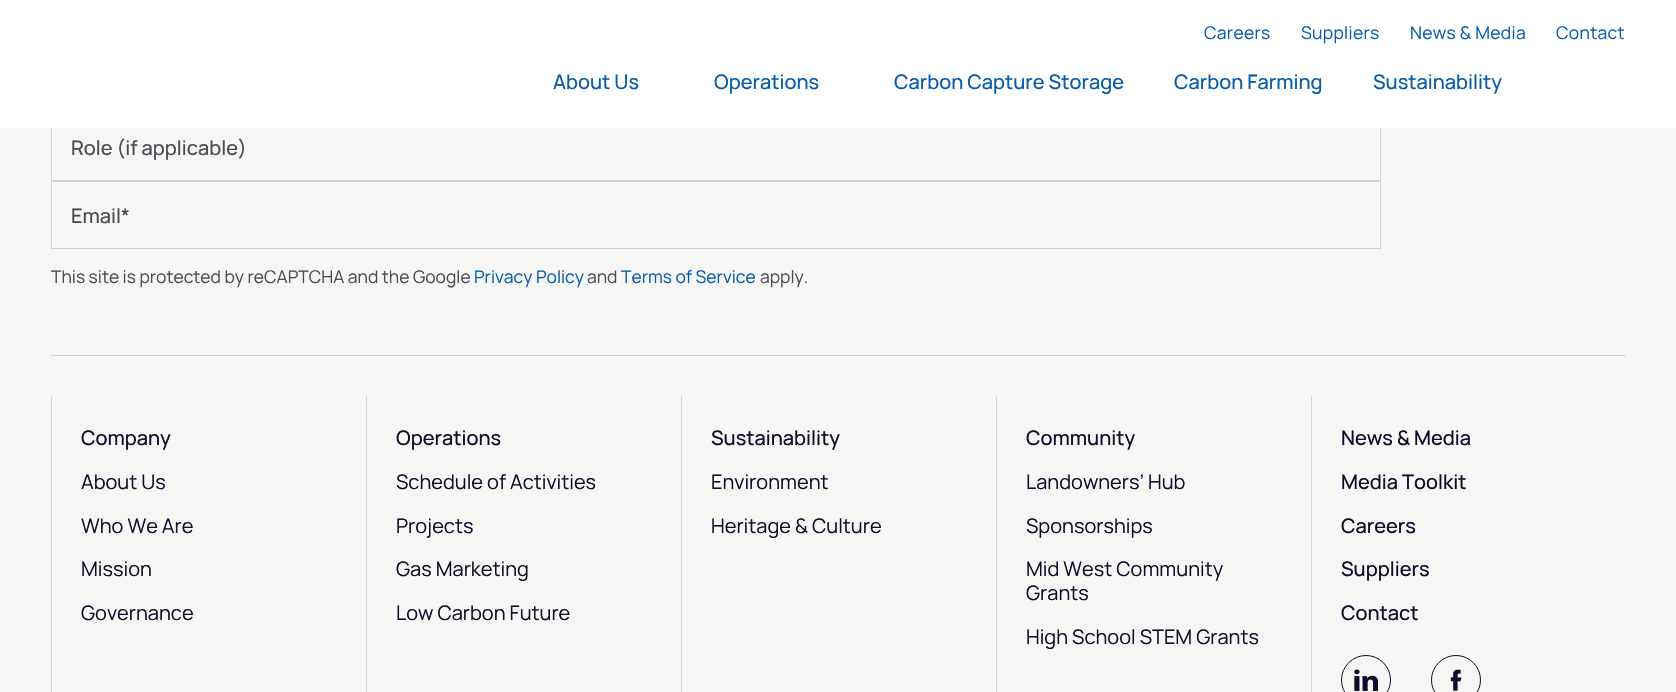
#include "include/core/SkBlurTypes.h"
#include "include/core/SkCanvas.h"
#include "include/core/SkData.h"
#include "include/core/SkFont.h"
#include "include/core/SkFontMgr.h"
#include "include/core/SkImage.h"
#include "include/core/SkMaskFilter.h"
#include "include/core/SkPaint.h"
#include "include/core/SkPathBuilder.h"
#include "include/core/SkTextBlob.h"
#include "include/effects/SkDashPathEffect.h"
#include "include/effects/SkGradientShader.h"
#include "include/utils/SkParsePath.h"

extern sk_sp<SkFontMgr> fontMgr;

void draw(SkCanvas* canvas) {
  SkPaint p;
  p.setAntiAlias(true);
  auto spacedText = [&](const char* s, float x, float y, const SkFont& font, const SkPaint& ink, float letter, float word) {
    std::vector<SkGlyphID> glyphs(font.countText(s, strlen(s), SkTextEncoding::kUTF8));
    std::vector<float> xs(glyphs.size());
    font.textToGlyphs(s, strlen(s), SkTextEncoding::kUTF8, glyphs);
    font.getXPos(glyphs, xs, x);
    float extra = 0;
    for (size_t i = 0; i < glyphs.size(); i++) {
      xs[i] += extra;
      extra += letter + word * (glyphs[i] == font.unicharToGlyph(' '));
    }
    canvas->drawTextBlob(SkTextBlob::MakeFromPosHGlyphs(glyphs, xs, y, font), 0, 0, ink);
  };
  canvas->clear(SkColorSetRGB(246, 246, 245));
  p.setStyle(SkPaint::kStroke_Style);
  p.setStrokeWidth(1);
  p.setColor(SkColorSetRGB(210, 210, 210));
  canvas->drawRect(SkRect::MakeLTRB(51.5f, 114.5f, 1380.5f, 180.5f), p);
  p.setStyle(SkPaint::kFill_Style);
  p.setColor(SK_ColorWHITE);
  canvas->drawRect(SkRect::MakeLTRB(0, 0, 1676, 128), p);
  p.setStyle(SkPaint::kStroke_Style);
  p.setColor(SkColorSetRGB(210, 210, 210));
  canvas->drawRect(SkRect::MakeLTRB(51.5f, 181.5f, 1380.5f, 248.5f), p);
  p.setStyle(SkPaint::kFill_Style);
  canvas->drawRect(SkRect::MakeLTRB(51, 355, 1626, 356), p);
  canvas->drawRect(SkRect::MakeLTRB(51, 396, 52, 692), p);
  canvas->drawRect(SkRect::MakeLTRB(366, 396, 367, 692), p);
  canvas->drawRect(SkRect::MakeLTRB(681, 396, 682, 692), p);
  canvas->drawRect(SkRect::MakeLTRB(996, 396, 997, 692), p);
  canvas->drawRect(SkRect::MakeLTRB(1311, 396, 1312, 692), p);
  p.setStyle(SkPaint::kStroke_Style);
  p.setColor(SkColorSetRGB(14, 14, 44));
  canvas->drawCircle(1366, 680, 24.5f, p);
  canvas->drawImageRect(SkImages::DeferredFromEncodedData(SkData::MakeFromFileName("images/1.png")), SkRect::MakeLTRB(1354, 669, 1378, 691), SkSamplingOptions());
  canvas->drawCircle(1456, 680, 24.5f, p);
  canvas->drawImageRect(SkImages::DeferredFromEncodedData(SkData::MakeFromFileName("images/2.png")), SkRect::MakeLTRB(1450, 669, 1462, 691), SkSamplingOptions());
  SkFont font1(fontMgr->matchFamilyStyle("Manrope", SkFontStyle::Normal()), 17.5f);
  font1.setSubpixel(true);
  p.setStyle(SkPaint::kFill_Style);
  p.setColor(SkColorSetRGB(7, 93, 170));
  spacedText("Careers", 1204, 39, font1, p, 0.3f, 0);
  spacedText("Suppliers", 1301, 39, font1, p, 0.3f, 0);
  spacedText("News & Media", 1410, 39, font1, p, 0.3f, 0);
  spacedText("Contact", 1556, 39, font1, p, 0.3f, 0);
  SkFont font2(fontMgr->matchFamilyStyle("Manrope", SkFontStyle(500, SkFontStyle::kNormal_Width, SkFontStyle::kUpright_Slant)), 20);
  font2.setSubpixel(true);
  canvas->drawString("About Us", 553, 89, font2, p);
  canvas->drawString("Operations", 714, 89, font2, p);
  canvas->drawString("Carbon Capture Storage", 894, 89, font2, p);
  canvas->drawString("Carbon Farming", 1174, 89, font2, p);
  canvas->drawString("Sustainability", 1373, 89, font2, p);
  p.setColor(SkColorSetRGB(75, 75, 86));
  canvas->drawString("Role (if applicable)", 71, 155, font2, p);
  canvas->drawString("Email*", 71, 223, font2, p);
  canvas->drawString("This site is protected by reCAPTCHA and the Google", 51, 283, font1, p);
  p.setColor(SkColorSetRGB(7, 93, 170));
  canvas->drawString("Privacy Policy", 474, 283, font1, p);
  p.setColor(SkColorSetRGB(75, 75, 86));
  canvas->drawString("and", 587, 283, font1, p);
  p.setColor(SkColorSetRGB(7, 93, 170));
  canvas->drawString("Terms of Service", 621, 283, font1, p);
  p.setColor(SkColorSetRGB(75, 75, 86));
  canvas->drawString("apply.", 760, 283, font1, p);
  p.setColor(SkColorSetRGB(14, 14, 44));
  canvas->drawString("Company", 81, 445, font2, p);
  SkFont font3(fontMgr->matchFamilyStyle("Manrope", SkFontStyle::Normal()), 20);
  font3.setSubpixel(true);
  canvas->drawString("About Us", 81, 489, font3, p);
  canvas->drawString("Who We Are", 81, 533, font3, p);
  canvas->drawString("Mission", 81, 576, font3, p);
  canvas->drawString("Governance", 81, 620, font3, p);
  canvas->drawString("Operations", 396, 445, font2, p);
  canvas->drawString("Schedule of Activities", 396, 489, font3, p);
  canvas->drawString("Projects", 396, 533, font3, p);
  canvas->drawString("Gas Marketing", 396, 576, font3, p);
  canvas->drawString("Low Carbon Future", 396, 620, font3, p);
  canvas->drawString("Sustainability", 711, 445, font2, p);
  canvas->drawString("Environment", 711, 489, font3, p);
  canvas->drawString("Heritage & Culture", 711, 533, font3, p);
  canvas->drawString("Community", 1026, 445, font2, p);
  canvas->drawString("Landowners’ Hub", 1026, 489, font3, p);
  canvas->drawString("Sponsorships", 1026, 533, font3, p);
  canvas->drawString("Mid West Community", 1026, 576, font3, p);
  canvas->drawString("Grants", 1026, 600, font3, p);
  canvas->drawString("High School STEM Grants", 1026, 644, font3, p);
  canvas->drawString("News & Media", 1341, 445, font2, p);
  canvas->drawString("Media Toolkit", 1341, 489, font2, p);
  canvas->drawString("Careers", 1341, 533, font2, p);
  canvas->drawString("Suppliers", 1341, 576, font2, p);
  canvas->drawString("Contact", 1341, 620, font2, p);
}
